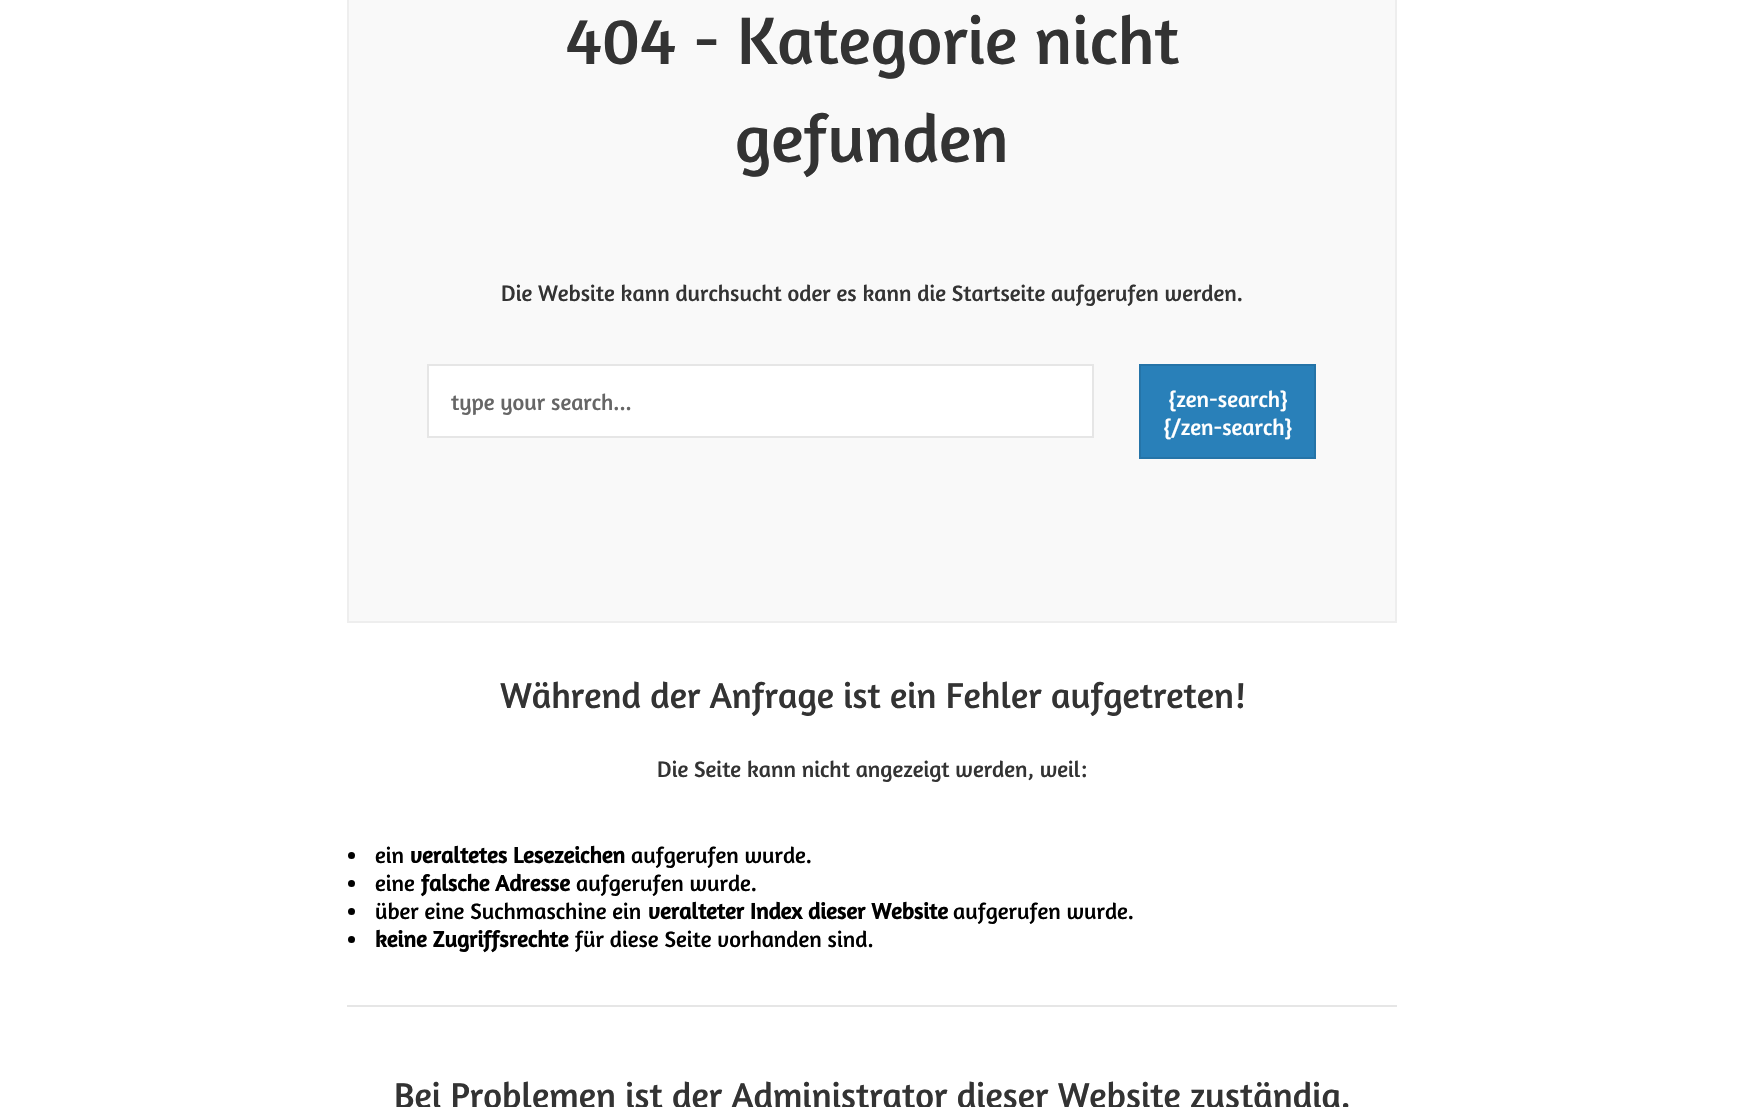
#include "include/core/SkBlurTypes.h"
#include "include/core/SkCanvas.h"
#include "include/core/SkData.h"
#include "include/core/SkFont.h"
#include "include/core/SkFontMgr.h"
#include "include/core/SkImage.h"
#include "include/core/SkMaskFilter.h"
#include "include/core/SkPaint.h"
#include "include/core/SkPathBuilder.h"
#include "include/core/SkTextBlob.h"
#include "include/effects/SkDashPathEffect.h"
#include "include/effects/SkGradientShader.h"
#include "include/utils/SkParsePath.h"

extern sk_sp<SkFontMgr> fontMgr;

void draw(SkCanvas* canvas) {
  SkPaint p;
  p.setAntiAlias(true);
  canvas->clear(SK_ColorWHITE);
  p.setColor(SkColorSetRGB(249, 249, 249));
  canvas->drawRect(SkRect::MakeLTRB(348, -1, 1396, 622), p);
  p.setStyle(SkPaint::kStroke_Style);
  p.setStrokeWidth(2);
  p.setColor(SkColorSetRGB(238, 238, 238));
  canvas->drawRect(SkRect::MakeLTRB(348, -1, 1396, 622), p);
  p.setStyle(SkPaint::kFill_Style);
  p.setColor(SK_ColorWHITE);
  canvas->drawRect(SkRect::MakeLTRB(428, 365, 1093, 437), p);
  p.setStyle(SkPaint::kStroke_Style);
  p.setColor(SkColorSetRGB(230, 230, 230));
  canvas->drawRect(SkRect::MakeLTRB(428, 365, 1093, 437), p);
  p.setStyle(SkPaint::kFill_Style);
  p.setColor(SkColorSetRGB(41, 128, 185));
  canvas->drawRect(SkRect::MakeLTRB(1140, 365, 1315, 458), p);
  p.setStyle(SkPaint::kStroke_Style);
  p.setColor(SkColorSetRGB(37, 116, 168));
  canvas->drawRect(SkRect::MakeLTRB(1140, 365, 1315, 458), p);
  p.setStyle(SkPaint::kFill_Style);
  p.setColor(SK_ColorBLACK);
  canvas->drawCircle(351.5f, 855.5f, 3.5f, p);
  canvas->drawCircle(351.5f, 883.5f, 3.5f, p);
  canvas->drawCircle(351.5f, 911.5f, 3.5f, p);
  canvas->drawCircle(351.5f, 939.5f, 3.5f, p);
  p.setColor(SkColorSetRGB(230, 230, 230));
  canvas->drawRect(SkRect::MakeLTRB(347, 1005, 1397, 1007), p);
  SkFont font1(fontMgr->matchFamilyStyle("Amaranth", SkFontStyle::Normal()), 68.25f);
  font1.setSubpixel(true);
  p.setColor(SkColorSetRGB(51, 51, 51));
  canvas->drawString("404 - Kategorie nicht", 566, 64, font1, p);
  canvas->drawString("gefunden", 735, 162, font1, p);
  SkFont font2(fontMgr->matchFamilyStyle("Amaranth", SkFontStyle::Normal()), 22.75f);
  font2.setSubpixel(true);
  canvas->drawString("Die Website kann durchsucht oder es kann die Startseite aufgerufen werden.", 501, 301, font2, p);
  p.setColor(SkColorSetRGB(102, 102, 102));
  canvas->drawString("type your search...", 451, 410, font2, p);
  p.setColor(SK_ColorWHITE);
  canvas->drawString("{zen-search}", 1168, 407, font2, p);
  canvas->drawString("{/zen-search}", 1163, 435, font2, p);
  SkFont font3(fontMgr->matchFamilyStyle("Amaranth", SkFontStyle::Normal()), 36.4f);
  font3.setSubpixel(true);
  p.setColor(SkColorSetRGB(51, 51, 51));
  canvas->drawString("Während der Anfrage ist ein Fehler aufgetreten!", 500, 708, font3, p);
  canvas->drawString("Die Seite kann nicht angezeigt werden, weil:", 657, 777, font2, p);
  p.setColor(SK_ColorBLACK);
  canvas->drawString("ein", 375, 863, font2, p);
  SkFont font4(fontMgr->matchFamilyStyle("Amaranth", SkFontStyle::Bold()), 22.75f);
  font4.setSubpixel(true);
  canvas->drawString("veraltetes Lesezeichen", 410, 863, font4, p);
  canvas->drawString("aufgerufen wurde.", 631, 863, font2, p);
  canvas->drawString("eine", 375, 891, font2, p);
  canvas->drawString("falsche Adresse", 421, 891, font4, p);
  canvas->drawString("aufgerufen wurde.", 576, 891, font2, p);
  canvas->drawString("über eine Suchmaschine ein", 375, 919, font2, p);
  canvas->drawString("veralteter Index dieser Website", 648, 919, font4, p);
  canvas->drawString("aufgerufen wurde.", 953, 919, font2, p);
  canvas->drawString("keine Zugriffsrechte", 375, 947, font4, p);
  canvas->drawString("für diese Seite vorhanden sind.", 575, 947, font2, p);
  p.setColor(SkColorSetRGB(51, 51, 51));
  canvas->drawString("Bei Problemen ist der Administrator dieser Website zuständig.", 394, 1108, font3, p);
}
